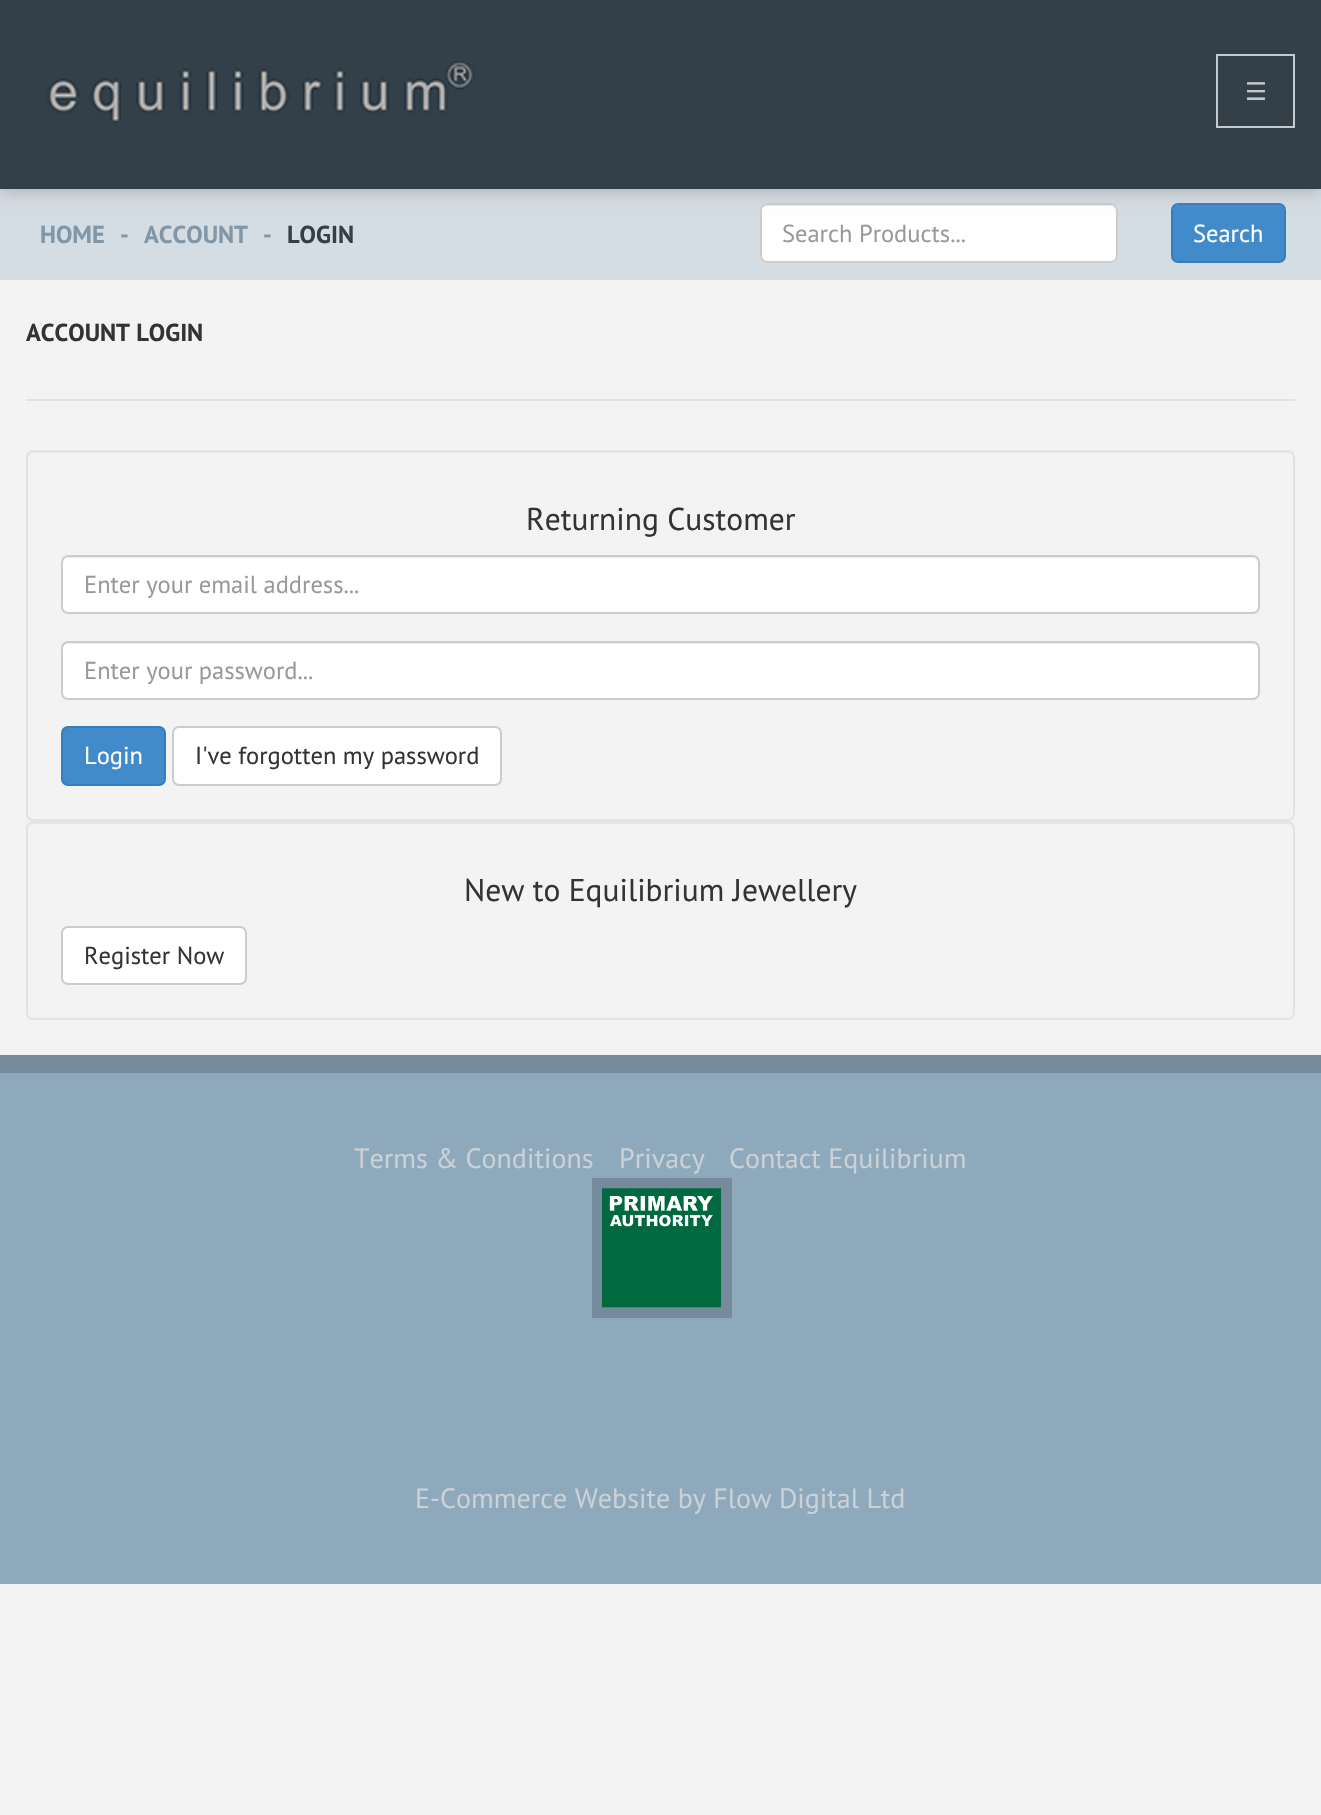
#include "include/core/SkBlurTypes.h"
#include "include/core/SkCanvas.h"
#include "include/core/SkData.h"
#include "include/core/SkFont.h"
#include "include/core/SkFontMgr.h"
#include "include/core/SkImage.h"
#include "include/core/SkMaskFilter.h"
#include "include/core/SkPaint.h"
#include "include/core/SkPathBuilder.h"
#include "include/core/SkTextBlob.h"
#include "include/effects/SkDashPathEffect.h"
#include "include/effects/SkGradientShader.h"
#include "include/utils/SkParsePath.h"

extern sk_sp<SkFontMgr> fontMgr;

void draw(SkCanvas* canvas) {
  SkPaint p;
  p.setAntiAlias(true);
  canvas->clear(SkColorSetRGB(243, 243, 243));
  p.setColor(SkColorSetRGB(212, 221, 228));
  canvas->drawRect(SkRect::MakeLTRB(0, 189, 1321, 280), p);
  p.setColor(SK_ColorWHITE);
  canvas->drawRoundRect(SkRect::MakeLTRB(760, 203, 1118, 263), 7, 7, p);
  p.setColor(SkColorSetRGB(236, 236, 236));
  canvas->drawPath(SkPathBuilder().moveTo(766, 206).lineTo(1111, 206).cubicTo(1114, 206, 1116, 209, 1116, 212).lineTo(1116, 257).lineTo(1115, 260).cubicTo(1116, 259, 1117, 257, 1117, 256).lineTo(1117, 210).cubicTo(1117, 207, 1115, 205, 1112, 205).lineTo(766, 205).cubicTo(763, 205, 761, 207, 761, 210).lineTo(761, 212).cubicTo(761, 209, 764, 206, 766, 206).close().detach(), p);
  p.setStyle(SkPaint::kStroke_Style);
  p.setStrokeWidth(2);
  p.setColor(SkColorSetRGB(204, 204, 204));
  canvas->drawRoundRect(SkRect::MakeLTRB(761, 204, 1117, 262), 6, 6, p);
  p.setStyle(SkPaint::kFill_Style);
  p.setColor(SkColorSetRGB(66, 139, 202));
  canvas->drawRoundRect(SkRect::MakeLTRB(1172, 204, 1285, 262), 6, 6, p);
  p.setStyle(SkPaint::kStroke_Style);
  p.setColor(SkColorSetRGB(53, 126, 189));
  canvas->drawRoundRect(SkRect::MakeLTRB(1172, 204, 1285, 262), 6, 6, p);
  p.setStyle(SkPaint::kFill_Style);
  p.setColor(SkColorSetRGB(162, 162, 162));
  p.setMaskFilter(SkMaskFilter::MakeBlur(kNormal_SkBlurStyle, 9));
  canvas->drawRect(SkRect::MakeLTRB(0, 0, 1321, 189), p);
  p.setMaskFilter(nullptr);
  p.setColor(SkColorSetRGB(51, 64, 73));
  canvas->drawRect(SkRect::MakeLTRB(0, 0, 1321, 189), p);
  canvas->drawImageRect(SkImages::DeferredFromEncodedData(SkData::MakeFromFileName("images/1.png")), SkRect::MakeLTRB(47, 61, 475, 123), SkSamplingOptions());
  p.setStyle(SkPaint::kStroke_Style);
  p.setColor(SkColorSetRGB(197, 202, 206));
  canvas->drawRect(SkRect::MakeLTRB(1217, 55, 1294, 127), p);
  p.setStyle(SkPaint::kFill_Style);
  p.setColor(SkColorSetRGB(226, 226, 226));
  canvas->drawRect(SkRect::MakeLTRB(26, 399, 1295, 401), p);
  p.setColor(SkColorSetRGB(233, 233, 233));
  canvas->drawPath(SkPathBuilder().moveTo(33, 453).lineTo(1288, 453).cubicTo(1291, 453, 1293, 456, 1293, 458).cubicTo(1293, 455, 1291, 452, 1288, 452).lineTo(33, 452).cubicTo(30, 452, 28, 455, 28, 458).cubicTo(28, 456, 30, 453, 33, 453).close().detach(), p);
  p.setStyle(SkPaint::kStroke_Style);
  p.setColor(SkColorSetRGB(227, 227, 227));
  canvas->drawRoundRect(SkRect::MakeLTRB(27, 451, 1294, 820), 6, 6, p);
  p.setStyle(SkPaint::kFill_Style);
  p.setColor(SK_ColorWHITE);
  canvas->drawRoundRect(SkRect::MakeLTRB(61, 555, 1260, 614), 7, 7, p);
  p.setColor(SkColorSetRGB(236, 236, 236));
  canvas->drawPath(SkPathBuilder().moveTo(68, 558).lineTo(1253, 558).cubicTo(1256, 558, 1258, 561, 1258, 564).lineTo(1258, 562).cubicTo(1258, 559, 1256, 557, 1253, 557).lineTo(68, 557).cubicTo(65, 557, 63, 559, 63, 562).lineTo(63, 564).cubicTo(63, 561, 65, 558, 68, 558).close().detach(), p);
  p.setStyle(SkPaint::kStroke_Style);
  p.setColor(SkColorSetRGB(204, 204, 204));
  canvas->drawRoundRect(SkRect::MakeLTRB(62, 556, 1259, 613), 6, 6, p);
  p.setStyle(SkPaint::kFill_Style);
  p.setColor(SK_ColorWHITE);
  canvas->drawRoundRect(SkRect::MakeLTRB(61, 641, 1260, 700), 7, 7, p);
  p.setColor(SkColorSetRGB(236, 236, 236));
  canvas->drawPath(SkPathBuilder().moveTo(68, 644).lineTo(1253, 644).cubicTo(1256, 644, 1258, 646, 1258, 649).lineTo(1258, 647).cubicTo(1258, 644, 1256, 642, 1253, 642).lineTo(68, 642).cubicTo(65, 642, 63, 644, 63, 647).lineTo(63, 649).cubicTo(63, 646, 65, 644, 68, 644).close().detach(), p);
  p.setStyle(SkPaint::kStroke_Style);
  p.setColor(SkColorSetRGB(204, 204, 204));
  canvas->drawRoundRect(SkRect::MakeLTRB(62, 642, 1259, 699), 6, 6, p);
  p.setStyle(SkPaint::kFill_Style);
  p.setColor(SkColorSetRGB(66, 139, 202));
  canvas->drawRoundRect(SkRect::MakeLTRB(62, 727, 165, 785), 6, 6, p);
  p.setStyle(SkPaint::kStroke_Style);
  p.setColor(SkColorSetRGB(53, 126, 189));
  canvas->drawRoundRect(SkRect::MakeLTRB(62, 727, 165, 785), 6, 6, p);
  p.setStyle(SkPaint::kFill_Style);
  p.setColor(SK_ColorWHITE);
  canvas->drawRoundRect(SkRect::MakeLTRB(173, 727, 501, 785), 6, 6, p);
  p.setStyle(SkPaint::kStroke_Style);
  p.setColor(SkColorSetRGB(204, 204, 204));
  canvas->drawRoundRect(SkRect::MakeLTRB(173, 727, 501, 785), 6, 6, p);
  p.setStyle(SkPaint::kFill_Style);
  p.setColor(SkColorSetRGB(233, 233, 233));
  canvas->drawPath(SkPathBuilder().moveTo(33, 824).lineTo(1288, 824).cubicTo(1291, 824, 1293, 827, 1293, 830).lineTo(1293, 828).cubicTo(1293, 825, 1291, 823, 1288, 823).lineTo(33, 823).cubicTo(30, 823, 28, 825, 28, 828).lineTo(28, 830).cubicTo(28, 827, 30, 824, 33, 824).close().detach(), p);
  p.setStyle(SkPaint::kStroke_Style);
  p.setColor(SkColorSetRGB(227, 227, 227));
  canvas->drawRoundRect(SkRect::MakeLTRB(27, 822, 1294, 1019), 6, 6, p);
  p.setStyle(SkPaint::kFill_Style);
  p.setColor(SK_ColorWHITE);
  canvas->drawRoundRect(SkRect::MakeLTRB(62, 927, 246, 984), 6, 6, p);
  p.setStyle(SkPaint::kStroke_Style);
  p.setColor(SkColorSetRGB(204, 204, 204));
  canvas->drawRoundRect(SkRect::MakeLTRB(62, 927, 246, 984), 6, 6, p);
  p.setStyle(SkPaint::kFill_Style);
  p.setColor(SkColorSetRGB(142, 169, 188));
  canvas->drawRect(SkRect::MakeLTRB(0, 1073, 1321, 1584), p);
  p.setColor(SkColorSetRGB(117, 138, 155));
  canvas->drawRect(SkRect::MakeLTRB(0, 1055, 1321, 1073), p);
  p.setStyle(SkPaint::kStroke_Style);
  p.setStrokeWidth(11);
  canvas->drawRect(SkRect::MakeLTRB(597.5f, 1183.5f, 726.5f, 1312.5f), p);
  canvas->drawImageRect(SkImages::DeferredFromEncodedData(SkData::MakeFromFileName("images/2.png")), SkRect::MakeLTRB(602, 1188, 721, 1308), SkSamplingOptions());
  SkFont font1(fontMgr->matchFamilyStyle("DejaVu Sans", SkFontStyle::Normal()), 24.5f);
  font1.setSubpixel(true);
  p.setStyle(SkPaint::kFill_Style);
  p.setColor(SkColorSetRGB(197, 202, 206));
  canvas->drawString("☰", 1245, 100, font1, p);
  SkFont font2(fontMgr->matchFamilyStyle("PT Sans", SkFontStyle::Bold()), 24.5f);
  font2.setSubpixel(true);
  p.setColor(SkColorSetRGB(129, 150, 167));
  canvas->drawString("HOME", 40, 243, font2, p);
  canvas->drawString("-", 120, 243, font2, p);
  canvas->drawString("ACCOUNT", 144, 243, font2, p);
  canvas->drawString("-", 263, 243, font2, p);
  p.setColor(SkColorSetRGB(51, 64, 73));
  canvas->drawString("LOGIN", 287, 243, font2, p);
  SkFont font3(fontMgr->matchFamilyStyle("PT Sans", SkFontStyle::Normal()), 24.5f);
  font3.setSubpixel(true);
  p.setColor(SkColorSetRGB(153, 153, 153));
  canvas->drawString("Search Products...", 782, 242, font3, p);
  p.setColor(SK_ColorWHITE);
  canvas->drawString("Search", 1193, 242, font3, p);
  p.setColor(SkColorSetRGB(51, 51, 51));
  canvas->drawString("ACCOUNT LOGIN", 26, 341, font2, p);
  SkFont font4(fontMgr->matchFamilyStyle("PT Sans", SkFontStyle::Normal()), 31.5f);
  font4.setSubpixel(true);
  canvas->drawString("Returning Customer", 526, 530, font4, p);
  p.setColor(SkColorSetRGB(153, 153, 153));
  canvas->drawString("Enter your email address...", 84, 593, font3, p);
  canvas->drawString("Enter your password...", 84, 679, font3, p);
  p.setColor(SK_ColorWHITE);
  canvas->drawString("Login", 84, 764, font3, p);
  p.setColor(SkColorSetRGB(51, 51, 51));
  canvas->drawString("I've forgotten my password", 195, 764, font3, p);
  canvas->drawString("New to Equilibrium Jewellery", 464, 901, font4, p);
  canvas->drawString("Register Now", 84, 964, font3, p);
  SkFont font5(fontMgr->matchFamilyStyle("PT Sans", SkFontStyle::Normal()), 28);
  font5.setSubpixel(true);
  p.setColor(SkColorSetRGB(202, 209, 215));
  canvas->drawString("Terms & Conditions", 354, 1168, font5, p);
  canvas->drawString("Privacy", 619, 1168, font5, p);
  canvas->drawString("Contact Equilibrium", 729, 1168, font5, p);
  canvas->drawString("E-Commerce Website by Flow Digital Ltd", 415, 1508, font5, p);
}
